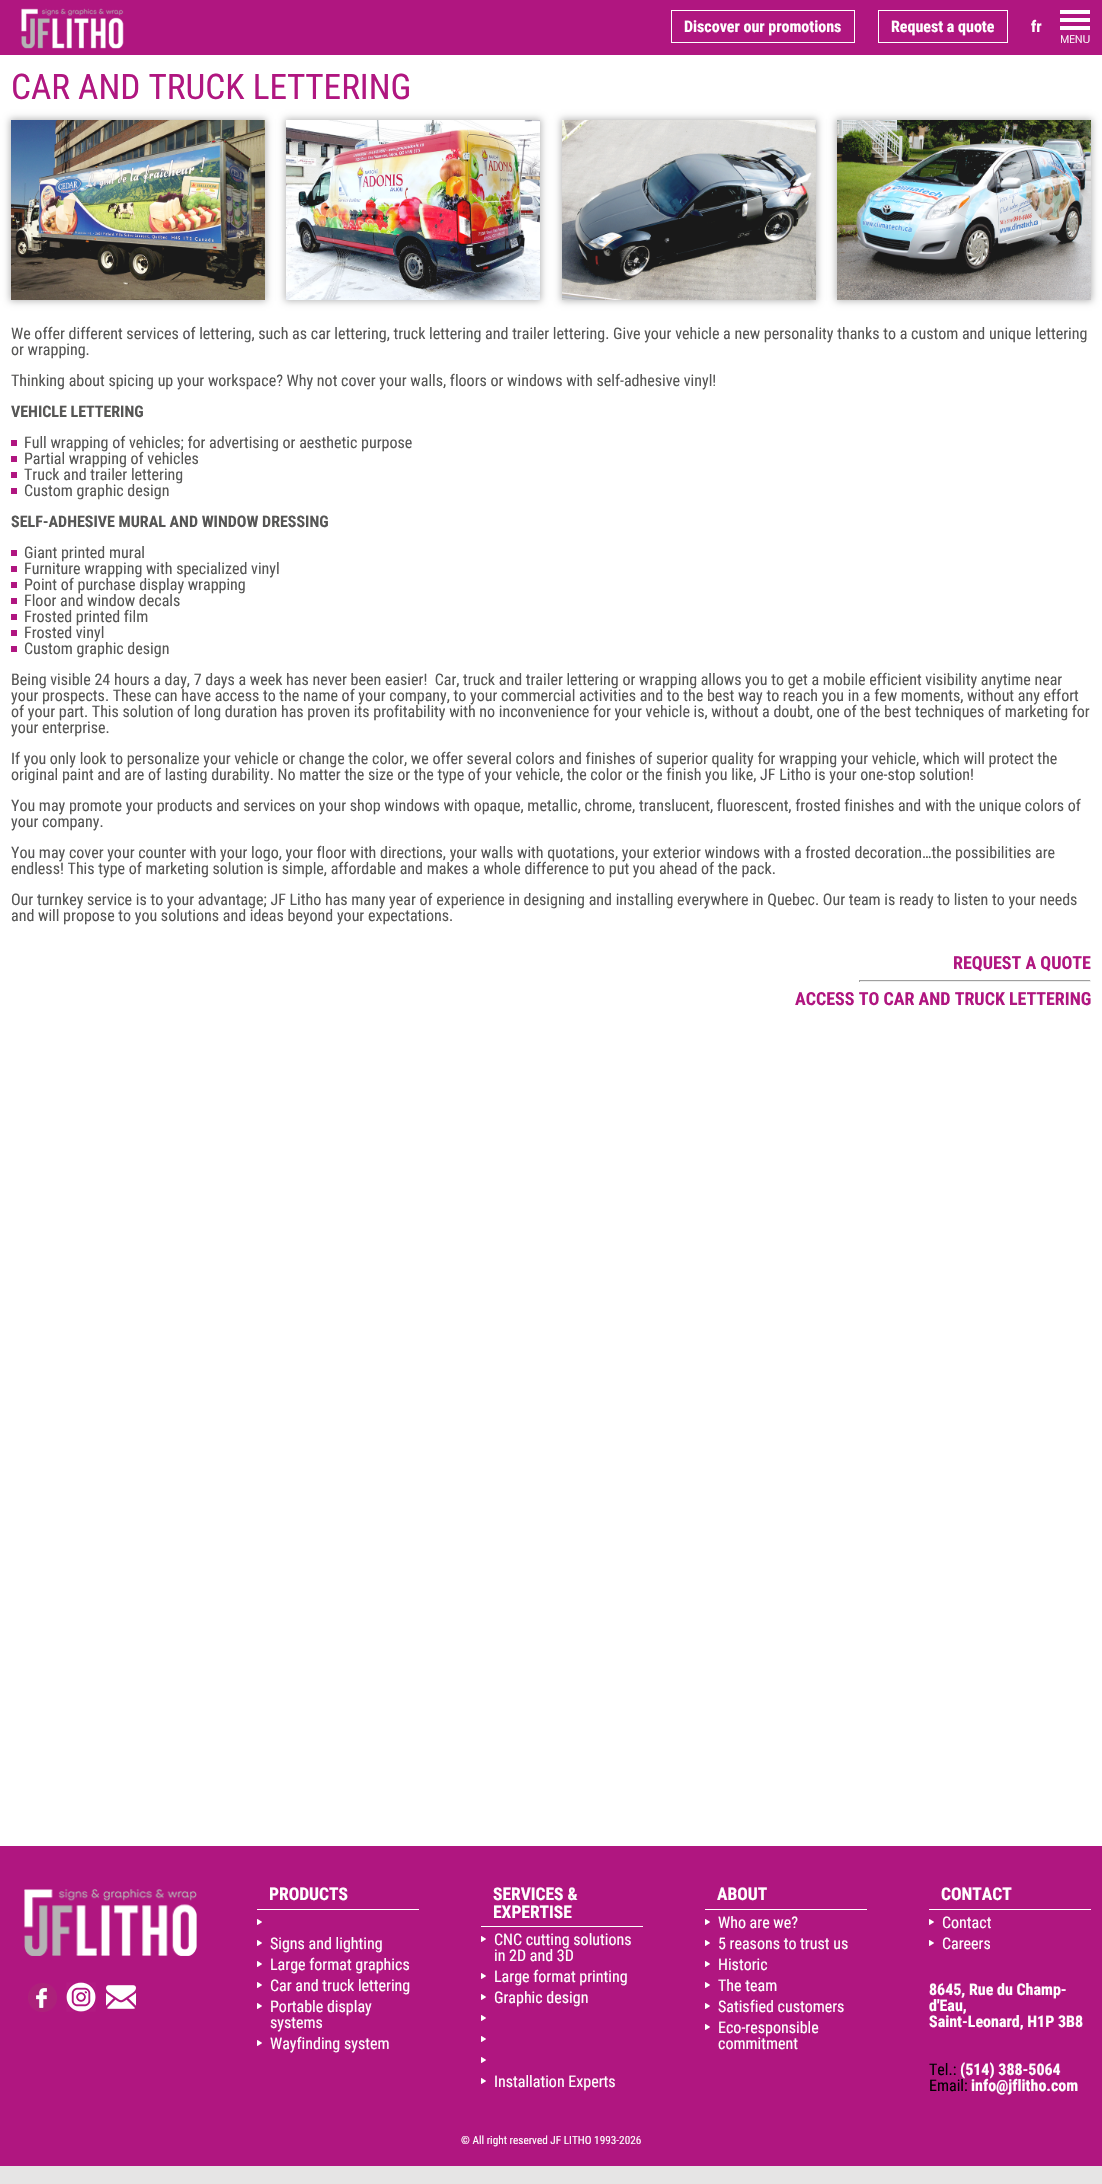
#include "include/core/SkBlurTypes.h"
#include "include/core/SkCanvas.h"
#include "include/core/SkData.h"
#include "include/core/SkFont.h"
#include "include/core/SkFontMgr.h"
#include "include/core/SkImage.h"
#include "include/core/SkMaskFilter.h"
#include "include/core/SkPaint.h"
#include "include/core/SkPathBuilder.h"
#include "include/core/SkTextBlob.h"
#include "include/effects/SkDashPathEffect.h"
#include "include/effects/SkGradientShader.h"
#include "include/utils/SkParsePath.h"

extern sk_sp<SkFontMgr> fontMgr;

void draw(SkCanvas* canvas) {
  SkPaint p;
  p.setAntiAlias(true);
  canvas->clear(SK_ColorWHITE);
  p.setColor(SkColorSetRGB(176, 22, 128));
  canvas->drawRect(SkRect::MakeLTRB(0, 0, 1102, 55), p);
  canvas->drawImageRect(SkImages::DeferredFromEncodedData(SkData::MakeFromFileName("images/1.png")), SkRect::MakeLTRB(21, 8, 124, 49), SkSamplingOptions());
  p.setStyle(SkPaint::kStroke_Style);
  p.setStrokeWidth(1);
  p.setColor(SK_ColorWHITE);
  canvas->drawRect(SkRect::MakeLTRB(671.5f, 10.5f, 854.5f, 42.5f), p);
  canvas->drawRect(SkRect::MakeLTRB(878.5f, 10.5f, 1007.5f, 42.5f), p);
  p.setStyle(SkPaint::kFill_Style);
  canvas->drawRect(SkRect::MakeLTRB(1060, 10, 1090, 14), p);
  canvas->drawRect(SkRect::MakeLTRB(1060, 18, 1090, 22), p);
  canvas->drawRect(SkRect::MakeLTRB(1060, 26, 1090, 30), p);
  canvas->save();
  canvas->clipPath(SkPathBuilder(SkPathFillType::kEvenOdd).moveTo(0, 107).lineTo(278, 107).lineTo(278, 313).lineTo(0, 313).close().moveTo(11, 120).lineTo(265, 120).lineTo(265, 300).lineTo(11, 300).close().detach(), true);
  p.setColor(SkColorSetRGB(181, 181, 181));
  p.setMaskFilter(SkMaskFilter::MakeBlur(kNormal_SkBlurStyle, 3.5f));
  canvas->drawRect(SkRect::MakeLTRB(10, 119, 266, 301), p);
  p.setMaskFilter(nullptr);
  canvas->restore();
  canvas->drawImageRect(SkImages::DeferredFromEncodedData(SkData::MakeFromFileName("images/2.png")), SkRect::MakeLTRB(11, 120, 265, 300), SkSamplingOptions());
  canvas->save();
  canvas->clipPath(SkPathBuilder(SkPathFillType::kEvenOdd).moveTo(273, 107).lineTo(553, 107).lineTo(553, 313).lineTo(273, 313).close().moveTo(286, 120).lineTo(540, 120).lineTo(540, 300).lineTo(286, 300).close().detach(), true);
  p.setMaskFilter(SkMaskFilter::MakeBlur(kNormal_SkBlurStyle, 3.5f));
  canvas->drawRect(SkRect::MakeLTRB(285, 119, 541, 301), p);
  p.setMaskFilter(nullptr);
  canvas->restore();
  canvas->drawImageRect(SkImages::DeferredFromEncodedData(SkData::MakeFromFileName("images/3.png")), SkRect::MakeLTRB(286, 120, 540, 300), SkSamplingOptions());
  canvas->save();
  canvas->clipPath(SkPathBuilder(SkPathFillType::kEvenOdd).moveTo(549, 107).lineTo(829, 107).lineTo(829, 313).lineTo(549, 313).close().moveTo(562, 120).lineTo(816, 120).lineTo(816, 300).lineTo(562, 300).close().detach(), true);
  p.setMaskFilter(SkMaskFilter::MakeBlur(kNormal_SkBlurStyle, 3.5f));
  canvas->drawRect(SkRect::MakeLTRB(561, 119, 817, 301), p);
  p.setMaskFilter(nullptr);
  canvas->restore();
  canvas->drawImageRect(SkImages::DeferredFromEncodedData(SkData::MakeFromFileName("images/4.png")), SkRect::MakeLTRB(562, 120, 816, 300), SkSamplingOptions());
  canvas->save();
  canvas->clipPath(SkPathBuilder(SkPathFillType::kEvenOdd).moveTo(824, 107).lineTo(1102, 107).lineTo(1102, 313).lineTo(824, 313).close().moveTo(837, 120).lineTo(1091, 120).lineTo(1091, 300).lineTo(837, 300).close().detach(), true);
  p.setMaskFilter(SkMaskFilter::MakeBlur(kNormal_SkBlurStyle, 3.5f));
  canvas->drawRect(SkRect::MakeLTRB(836, 119, 1092, 301), p);
  p.setMaskFilter(nullptr);
  canvas->restore();
  canvas->drawImageRect(SkImages::DeferredFromEncodedData(SkData::MakeFromFileName("images/5.png")), SkRect::MakeLTRB(837, 120, 1091, 300), SkSamplingOptions());
  p.setColor(SkColorSetRGB(176, 22, 128));
  canvas->drawRect(SkRect::MakeLTRB(11, 440, 17, 446), p);
  canvas->drawRect(SkRect::MakeLTRB(11, 456, 17, 462), p);
  canvas->drawRect(SkRect::MakeLTRB(11, 472, 17, 478), p);
  canvas->drawRect(SkRect::MakeLTRB(11, 488, 17, 494), p);
  canvas->drawRect(SkRect::MakeLTRB(11, 550, 17, 556), p);
  canvas->drawRect(SkRect::MakeLTRB(11, 566, 17, 572), p);
  canvas->drawRect(SkRect::MakeLTRB(11, 582, 17, 588), p);
  canvas->drawRect(SkRect::MakeLTRB(11, 598, 17, 604), p);
  canvas->drawRect(SkRect::MakeLTRB(11, 614, 17, 620), p);
  canvas->drawRect(SkRect::MakeLTRB(11, 630, 17, 636), p);
  canvas->drawRect(SkRect::MakeLTRB(11, 646, 17, 652), p);
  p.setColor(SkColorSetRGB(159, 159, 159));
  canvas->drawRect(SkRect::MakeLTRB(859, 980, 1091, 981), p);
  p.setColor(SkColorSetRGB(238, 238, 238));
  canvas->drawRect(SkRect::MakeLTRB(1090, 980, 1091, 982), p);
  canvas->drawRect(SkRect::MakeLTRB(859, 981, 1091, 982), p);
  p.setColor(SkColorSetRGB(159, 159, 159));
  canvas->drawRect(SkRect::MakeLTRB(859, 980, 860, 982), p);
  p.setColor(SkColorSetRGB(176, 22, 128));
  canvas->drawRect(SkRect::MakeLTRB(0, 1846, 1102, 2166), p);
  canvas->drawImageRect(SkImages::DeferredFromEncodedData(SkData::MakeFromFileName("images/6.png")), SkRect::MakeLTRB(24, 1889, 197, 1956), SkSamplingOptions());
  canvas->drawImageRect(SkImages::DeferredFromEncodedData(SkData::MakeFromFileName("images/7.png")), SkRect::MakeLTRB(28, 1983, 57, 2012), SkSamplingOptions());
  canvas->drawImageRect(SkImages::DeferredFromEncodedData(SkData::MakeFromFileName("images/8.png")), SkRect::MakeLTRB(66, 1982, 96, 2012), SkSamplingOptions());
  canvas->drawImageRect(SkImages::DeferredFromEncodedData(SkData::MakeFromFileName("images/9.png")), SkRect::MakeLTRB(106, 1985, 136, 2009), SkSamplingOptions());
  p.setColor(SK_ColorWHITE);
  canvas->drawRect(SkRect::MakeLTRB(257, 1909, 419, 1910), p);
  canvas->drawImageRect(SkImages::DeferredFromEncodedData(SkData::MakeFromFileName("images/10.png")), SkRect::MakeLTRB(257, 1919, 262, 1925), SkSamplingOptions());
  canvas->drawImageRect(SkImages::DeferredFromEncodedData(SkData::MakeFromFileName("images/10.png")), SkRect::MakeLTRB(257, 1940, 262, 1946), SkSamplingOptions());
  canvas->drawImageRect(SkImages::DeferredFromEncodedData(SkData::MakeFromFileName("images/10.png")), SkRect::MakeLTRB(257, 1961, 262, 1967), SkSamplingOptions());
  canvas->drawImageRect(SkImages::DeferredFromEncodedData(SkData::MakeFromFileName("images/10.png")), SkRect::MakeLTRB(257, 1982, 262, 1988), SkSamplingOptions());
  canvas->drawImageRect(SkImages::DeferredFromEncodedData(SkData::MakeFromFileName("images/10.png")), SkRect::MakeLTRB(257, 2003, 262, 2009), SkSamplingOptions());
  canvas->drawImageRect(SkImages::DeferredFromEncodedData(SkData::MakeFromFileName("images/10.png")), SkRect::MakeLTRB(257, 2040, 262, 2046), SkSamplingOptions());
  canvas->drawRect(SkRect::MakeLTRB(481, 1926, 643, 1927), p);
  canvas->drawImageRect(SkImages::DeferredFromEncodedData(SkData::MakeFromFileName("images/10.png")), SkRect::MakeLTRB(481, 1936, 486, 1942), SkSamplingOptions());
  canvas->drawImageRect(SkImages::DeferredFromEncodedData(SkData::MakeFromFileName("images/10.png")), SkRect::MakeLTRB(481, 1973, 486, 1979), SkSamplingOptions());
  canvas->drawImageRect(SkImages::DeferredFromEncodedData(SkData::MakeFromFileName("images/10.png")), SkRect::MakeLTRB(481, 1994, 486, 2000), SkSamplingOptions());
  canvas->drawImageRect(SkImages::DeferredFromEncodedData(SkData::MakeFromFileName("images/10.png")), SkRect::MakeLTRB(481, 2015, 486, 2021), SkSamplingOptions());
  canvas->drawImageRect(SkImages::DeferredFromEncodedData(SkData::MakeFromFileName("images/10.png")), SkRect::MakeLTRB(481, 2036, 486, 2042), SkSamplingOptions());
  canvas->drawImageRect(SkImages::DeferredFromEncodedData(SkData::MakeFromFileName("images/10.png")), SkRect::MakeLTRB(481, 2057, 486, 2063), SkSamplingOptions());
  canvas->drawImageRect(SkImages::DeferredFromEncodedData(SkData::MakeFromFileName("images/10.png")), SkRect::MakeLTRB(481, 2078, 486, 2084), SkSamplingOptions());
  canvas->drawRect(SkRect::MakeLTRB(705, 1909, 867, 1910), p);
  canvas->drawImageRect(SkImages::DeferredFromEncodedData(SkData::MakeFromFileName("images/10.png")), SkRect::MakeLTRB(705, 1919, 710, 1925), SkSamplingOptions());
  canvas->drawImageRect(SkImages::DeferredFromEncodedData(SkData::MakeFromFileName("images/10.png")), SkRect::MakeLTRB(705, 1940, 710, 1946), SkSamplingOptions());
  canvas->drawImageRect(SkImages::DeferredFromEncodedData(SkData::MakeFromFileName("images/10.png")), SkRect::MakeLTRB(705, 1961, 710, 1967), SkSamplingOptions());
  canvas->drawImageRect(SkImages::DeferredFromEncodedData(SkData::MakeFromFileName("images/10.png")), SkRect::MakeLTRB(705, 1982, 710, 1988), SkSamplingOptions());
  canvas->drawImageRect(SkImages::DeferredFromEncodedData(SkData::MakeFromFileName("images/10.png")), SkRect::MakeLTRB(705, 2003, 710, 2009), SkSamplingOptions());
  canvas->drawImageRect(SkImages::DeferredFromEncodedData(SkData::MakeFromFileName("images/10.png")), SkRect::MakeLTRB(705, 2024, 710, 2030), SkSamplingOptions());
  canvas->drawRect(SkRect::MakeLTRB(929, 1909, 1091, 1910), p);
  canvas->drawImageRect(SkImages::DeferredFromEncodedData(SkData::MakeFromFileName("images/10.png")), SkRect::MakeLTRB(929, 1919, 934, 1925), SkSamplingOptions());
  canvas->drawImageRect(SkImages::DeferredFromEncodedData(SkData::MakeFromFileName("images/10.png")), SkRect::MakeLTRB(929, 1940, 934, 1946), SkSamplingOptions());
  p.setColor(SkColorSetRGB(230, 229, 229));
  canvas->drawRect(SkRect::MakeLTRB(0, 2166, 1102, 2184), p);
  SkFont font1(fontMgr->matchFamilyStyle("Roboto Condensed", SkFontStyle::Bold()), 16);
  font1.setSubpixel(true);
  p.setColor(SK_ColorWHITE);
  canvas->drawString("Discover our promotions", 684, 32, font1, p);
  canvas->drawString("Request a quote", 891, 32, font1, p);
  canvas->drawString("fr", 1031, 32, font1, p);
  SkFont font2(fontMgr->matchFamilyStyle("Open Sans", SkFontStyle::Bold()), 10.5f);
  font2.setSubpixel(true);
  canvas->drawString("MENU", 1060, 43, font2, p);
  SkFont font3(fontMgr->matchFamilyStyle("Roboto Condensed", SkFontStyle::Normal()), 35.25f);
  font3.setSubpixel(true);
  p.setColor(SkColorSetRGB(176, 22, 128));
  canvas->drawString("CAR AND TRUCK LETTERING", 11, 99, font3, p);
  SkFont font4(fontMgr->matchFamilyStyle("Roboto Condensed", SkFontStyle::Normal()), 16);
  font4.setSubpixel(true);
  p.setColor(SkColorSetRGB(87, 87, 86));
  canvas->drawString("We offer different services of lettering, such as car lettering, truck lettering and trailer lettering. Give your vehicle a new personality thanks to a custom and unique lettering", 11, 339, font4, p);
  canvas->drawString("or wrapping.", 11, 355, font4, p);
  canvas->drawString("Thinking about spicing up your workspace? Why not cover your walls, floors or windows with self-adhesive vinyl!", 11, 386, font4, p);
  canvas->drawString("VEHICLE LETTERING", 11, 417, font1, p);
  canvas->drawString("Full wrapping of vehicles; for advertising or aesthetic purpose", 24, 448, font4, p);
  canvas->drawString("Partial wrapping of vehicles", 24, 464, font4, p);
  canvas->drawString("Truck and trailer lettering", 24, 480, font4, p);
  canvas->drawString("Custom graphic design", 24, 496, font4, p);
  canvas->drawString("SELF-ADHESIVE MURAL AND WINDOW DRESSING", 11, 527, font1, p);
  canvas->drawString("Giant printed mural", 24, 558, font4, p);
  canvas->drawString("Furniture wrapping with specialized vinyl", 24, 574, font4, p);
  canvas->drawString("Point of purchase display wrapping", 24, 590, font4, p);
  canvas->drawString("Floor and window decals", 24, 606, font4, p);
  canvas->drawString("Frosted printed film", 24, 622, font4, p);
  canvas->drawString("Frosted vinyl", 24, 638, font4, p);
  canvas->drawString("Custom graphic design", 24, 654, font4, p);
  canvas->drawString("Being visible 24 hours a day, 7 days a week has never been easier!  Car, truck and trailer lettering or wrapping allows you to get a mobile efficient visibility anytime near", 11, 685, font4, p);
  canvas->drawString("your prospects. These can have access to the name of your company, to your commercial activities and to the best way to reach you in a few moments, without any effort", 11, 701, font4, p);
  canvas->drawString("of your part. This solution of long duration has proven its profitability with no inconvenience for your vehicle is, without a doubt, one of the best techniques of marketing for", 11, 717, font4, p);
  canvas->drawString("your enterprise.", 11, 733, font4, p);
  canvas->drawString("If you only look to personalize your vehicle or change the color, we offer several colors and finishes of superior quality for wrapping your vehicle, which will protect the", 11, 764, font4, p);
  canvas->drawString("original paint and are of lasting durability. No matter the size or the type of your vehicle, the color or the finish you like, JF Litho is your one-stop solution!", 11, 780, font4, p);
  canvas->drawString("You may promote your products and services on your shop windows with opaque, metallic, chrome, translucent, fluorescent, frosted finishes and with the unique colors of", 11, 811, font4, p);
  canvas->drawString("your company.", 11, 827, font4, p);
  canvas->drawString("You may cover your counter with your logo, your floor with directions, your walls with quotations, your exterior windows with a frosted decoration…the possibilities are", 11, 858, font4, p);
  canvas->drawString("endless! This type of marketing solution is simple, affordable and makes a whole difference to put you ahead of the pack.", 11, 874, font4, p);
  canvas->drawString("Our turnkey service is to your advantage; JF Litho has many year of experience in designing and installing everywhere in Quebec. Our team is ready to listen to your needs", 11, 905, font4, p);
  canvas->drawString("and will propose to you solutions and ideas beyond your expectations.", 11, 921, font4, p);
  SkFont font5(fontMgr->matchFamilyStyle("Roboto Condensed", SkFontStyle::Bold()), 18);
  font5.setSubpixel(true);
  p.setColor(SkColorSetRGB(176, 22, 128));
  canvas->drawString("REQUEST A QUOTE", 953, 969, font5, p);
  canvas->drawString("ACCESS TO CAR AND TRUCK LETTERING", 795, 1005, font5, p);
  SkFont font6(fontMgr->matchFamilyStyle("Roboto Condensed", SkFontStyle::Bold()), 17.5f);
  font6.setSubpixel(true);
  p.setColor(SK_ColorWHITE);
  canvas->drawString("PRODUCTS", 269, 1900, font6, p);
  canvas->drawString("Signs and lighting", 270, 1949, font4, p);
  canvas->drawString("Large format graphics", 270, 1970, font4, p);
  canvas->drawString("Car and truck lettering", 270, 1991, font4, p);
  canvas->drawString("Portable display", 270, 2012, font4, p);
  canvas->drawString("systems", 270, 2028, font4, p);
  canvas->drawString("Wayfinding system", 270, 2049, font4, p);
  canvas->drawString("SERVICES &", 493, 1900, font6, p);
  canvas->drawString("EXPERTISE", 493, 1918, font6, p);
  canvas->drawString("CNC cutting solutions", 494, 1945, font4, p);
  canvas->drawString("in 2D and 3D", 494, 1961, font4, p);
  canvas->drawString("Large format printing", 494, 1982, font4, p);
  canvas->drawString("Graphic design", 494, 2003, font4, p);
  canvas->drawString("Installation Experts", 494, 2087, font4, p);
  canvas->drawString("ABOUT", 717, 1900, font6, p);
  canvas->drawString("Who are we?", 718, 1928, font4, p);
  canvas->drawString("5 reasons to trust us", 718, 1949, font4, p);
  canvas->drawString("Historic", 718, 1970, font4, p);
  canvas->drawString("The team", 718, 1991, font4, p);
  canvas->drawString("Satisfied customers", 718, 2012, font4, p);
  canvas->drawString("Eco-responsible", 718, 2033, font4, p);
  canvas->drawString("commitment", 718, 2049, font4, p);
  canvas->drawString("CONTACT", 941, 1900, font6, p);
  canvas->drawString("Contact", 942, 1928, font4, p);
  canvas->drawString("Careers", 942, 1949, font4, p);
  canvas->drawString("8645, Rue du Champ-", 929, 1995, font1, p);
  canvas->drawString("d'Eau,", 929, 2011, font1, p);
  canvas->drawString("Saint-Leonard, H1P 3B8", 929, 2027, font1, p);
  p.setColor(SK_ColorBLACK);
  canvas->drawString("Tel.:", 929, 2075, font4, p);
  p.setColor(SK_ColorWHITE);
  canvas->drawString("(514) 388-5064", 960, 2075, font1, p);
  p.setColor(SK_ColorBLACK);
  canvas->drawString("Email:", 929, 2091, font4, p);
  p.setColor(SK_ColorWHITE);
  canvas->drawString("info@jflitho.com", 971, 2091, font1, p);
  SkFont font7(fontMgr->matchFamilyStyle("Roboto Condensed", SkFontStyle::Normal()), 11.25f);
  font7.setSubpixel(true);
  canvas->drawString("© All right reserved JF LITHO 1993-2026", 461, 2144, font7, p);
}
